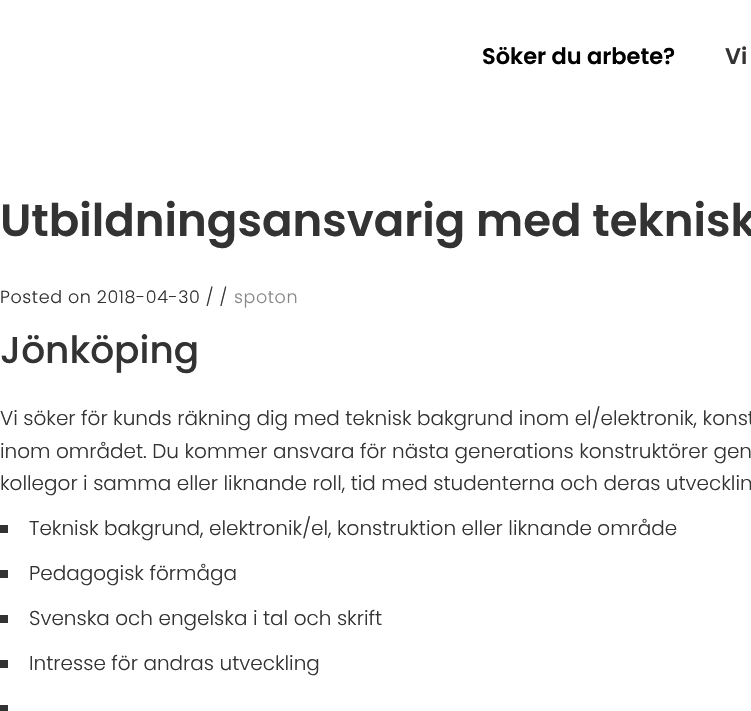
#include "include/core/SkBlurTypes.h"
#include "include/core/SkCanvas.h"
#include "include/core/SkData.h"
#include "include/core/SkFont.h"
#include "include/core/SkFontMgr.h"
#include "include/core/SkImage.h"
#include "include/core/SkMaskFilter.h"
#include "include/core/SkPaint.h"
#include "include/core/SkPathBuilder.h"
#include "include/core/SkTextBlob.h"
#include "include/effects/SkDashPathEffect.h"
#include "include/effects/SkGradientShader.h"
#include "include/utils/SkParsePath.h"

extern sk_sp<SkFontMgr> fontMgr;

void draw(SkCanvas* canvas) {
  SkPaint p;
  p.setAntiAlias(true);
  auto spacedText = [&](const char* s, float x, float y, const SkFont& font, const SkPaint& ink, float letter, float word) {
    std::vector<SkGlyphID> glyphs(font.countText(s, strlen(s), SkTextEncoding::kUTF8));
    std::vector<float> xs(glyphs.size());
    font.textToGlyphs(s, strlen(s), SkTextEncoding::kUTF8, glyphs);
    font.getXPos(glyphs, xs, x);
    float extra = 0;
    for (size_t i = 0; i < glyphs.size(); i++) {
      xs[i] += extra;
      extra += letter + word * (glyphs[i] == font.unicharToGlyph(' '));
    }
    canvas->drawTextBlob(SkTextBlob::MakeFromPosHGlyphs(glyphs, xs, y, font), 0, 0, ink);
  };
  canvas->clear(SK_ColorWHITE);
  p.setColor(SkColorSetRGB(51, 51, 51));
  canvas->drawRect(SkRect::MakeLTRB(0, 525, 8, 533), p);
  canvas->drawRect(SkRect::MakeLTRB(0, 570, 8, 578), p);
  canvas->drawRect(SkRect::MakeLTRB(0, 615, 8, 623), p);
  canvas->drawRect(SkRect::MakeLTRB(0, 660, 8, 668), p);
  canvas->drawRect(SkRect::MakeLTRB(0, 705, 8, 711), p);
  SkFont font1(fontMgr->matchFamilyStyle("Poppins", SkFontStyle(600, SkFontStyle::kNormal_Width, SkFontStyle::kUpright_Slant)), 22.5f);
  font1.setSubpixel(true);
  p.setColor(SK_ColorBLACK);
  canvas->drawString("Söker du arbete?", 482, 64, font1, p);
  p.setColor(SkColorSetRGB(51, 51, 51));
  canvas->drawString("Vi", 725, 64, font1, p);
  SkFont font2(fontMgr->matchFamilyStyle("Poppins", SkFontStyle(600, SkFontStyle::kNormal_Width, SkFontStyle::kUpright_Slant)), 45);
  font2.setSubpixel(true);
  canvas->drawString("Utbildningsansvarig med teknisk", 0, 236, font2, p);
  SkFont font3(fontMgr->matchFamilyStyle("Poppins", SkFontStyle(300, SkFontStyle::kNormal_Width, SkFontStyle::kUpright_Slant)), 17.5f);
  font3.setSubpixel(true);
  spacedText("Posted on 2018-04-30 / /", 0, 303, font3, p, 0.6f, 0);
  p.setColor(SkColorSetRGB(136, 136, 136));
  spacedText("spoton", 234, 303, font3, p, 0.6f, 0);
  SkFont font4(fontMgr->matchFamilyStyle("Poppins", SkFontStyle(500, SkFontStyle::kNormal_Width, SkFontStyle::kUpright_Slant)), 37.5f);
  font4.setSubpixel(true);
  p.setColor(SkColorSetRGB(51, 51, 51));
  canvas->drawString("Jönköping", 0, 363, font4, p);
  SkFont font5(fontMgr->matchFamilyStyle("Poppins", SkFontStyle(300, SkFontStyle::kNormal_Width, SkFontStyle::kUpright_Slant)), 20);
  font5.setSubpixel(true);
  canvas->drawString("Vi söker för kunds räkning dig med teknisk bakgrund inom el/elektronik, konst", 0, 425, font5, p);
  canvas->drawString("inom området. Du kommer ansvara för nästa generations konstruktörer gen", 0, 458, font5, p);
  canvas->drawString("kollegor i samma eller liknande roll, tid med studenterna och deras utvecklin", 0, 490, font5, p);
  canvas->drawString("Teknisk bakgrund, elektronik/el, konstruktion eller liknande område", 29, 535, font5, p);
  canvas->drawString("Pedagogisk förmåga", 29, 580, font5, p);
  canvas->drawString("Svenska och engelska i tal och skrift", 29, 625, font5, p);
  canvas->drawString("Intresse för andras utveckling", 29, 670, font5, p);
}
